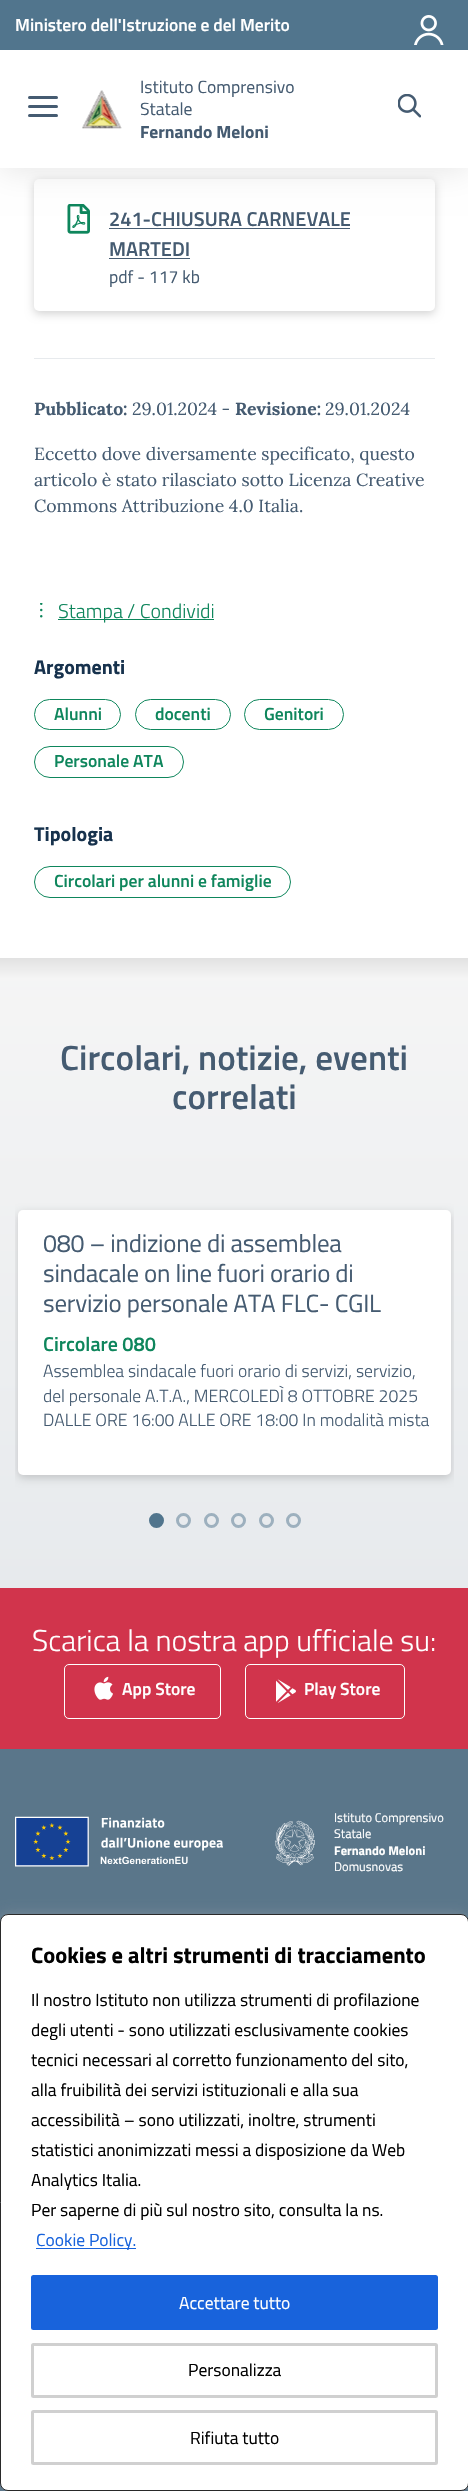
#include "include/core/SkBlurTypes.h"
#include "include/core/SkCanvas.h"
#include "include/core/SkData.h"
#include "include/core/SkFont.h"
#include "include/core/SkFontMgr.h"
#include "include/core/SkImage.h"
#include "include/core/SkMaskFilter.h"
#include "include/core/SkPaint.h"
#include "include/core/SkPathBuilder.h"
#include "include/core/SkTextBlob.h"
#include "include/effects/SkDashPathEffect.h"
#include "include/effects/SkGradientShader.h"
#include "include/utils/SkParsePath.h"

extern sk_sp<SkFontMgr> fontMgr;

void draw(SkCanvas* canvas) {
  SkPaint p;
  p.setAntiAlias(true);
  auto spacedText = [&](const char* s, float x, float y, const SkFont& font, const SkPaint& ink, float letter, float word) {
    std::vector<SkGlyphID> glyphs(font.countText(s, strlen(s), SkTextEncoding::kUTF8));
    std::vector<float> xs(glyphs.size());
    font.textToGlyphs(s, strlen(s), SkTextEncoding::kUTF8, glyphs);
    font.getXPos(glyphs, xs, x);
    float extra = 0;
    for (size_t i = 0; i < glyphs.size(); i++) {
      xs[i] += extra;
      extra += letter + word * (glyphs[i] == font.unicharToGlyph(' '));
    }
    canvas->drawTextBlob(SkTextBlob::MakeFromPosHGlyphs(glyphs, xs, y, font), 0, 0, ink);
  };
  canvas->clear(SK_ColorWHITE);
  p.setColor(SkColorSetARGB(43, 0, 0, 0));
  p.setMaskFilter(SkMaskFilter::MakeBlur(kNormal_SkBlurStyle, 4.5f));
  canvas->drawRoundRect(SkRect::MakeLTRB(34, 181, 435, 314), 5, 5, p);
  p.setMaskFilter(nullptr);
  p.setColor(SK_ColorWHITE);
  canvas->drawRoundRect(SkRect::MakeLTRB(34, 179, 435, 311), 5, 5, p);
  canvas->drawImageRect(SkImages::DeferredFromEncodedData(SkData::MakeFromFileName("images/4.png")), SkRect::MakeLTRB(67, 204, 90, 234), SkSamplingOptions());
  p.setColor(SkColorSetARGB(26, 0, 0, 0));
  p.setMaskFilter(SkMaskFilter::MakeBlur(kNormal_SkBlurStyle, 15.5f));
  canvas->drawRect(SkRect::MakeLTRB(0, 3, 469, 170), p);
  p.setMaskFilter(nullptr);
  p.setColor(SK_ColorWHITE);
  canvas->drawRect(SkRect::MakeLTRB(0, 50, 468, 168), p);
  p.setColor(SkColorSetRGB(81, 117, 141));
  canvas->drawRect(SkRect::MakeLTRB(0, 0, 468, 50), p);
  canvas->drawImageRect(SkImages::DeferredFromEncodedData(SkData::MakeFromFileName("images/1.png")), SkRect::MakeLTRB(414, 15, 444, 45), SkSamplingOptions());
  p.setColor(SkColorSetRGB(69, 91, 113));
  canvas->drawRoundRect(SkRect::MakeLTRB(28, 105, 58, 108), 1.5f, 1.5f, p);
  canvas->drawRoundRect(SkRect::MakeLTRB(28, 96, 58, 99), 1.5f, 1.5f, p);
  canvas->drawRoundRect(SkRect::MakeLTRB(28, 114, 58, 117), 1.5f, 1.5f, p);
  canvas->drawImageRect(SkImages::DeferredFromEncodedData(SkData::MakeFromFileName("images/2.png")), SkRect::MakeLTRB(82, 90, 122, 129), SkSamplingOptions());
  canvas->drawImageRect(SkImages::DeferredFromEncodedData(SkData::MakeFromFileName("images/3.png")), SkRect::MakeLTRB(398, 94, 421, 118), SkSamplingOptions());
  canvas->drawRect(SkRect::MakeLTRB(109, 228, 350, 229), p);
  canvas->drawRect(SkRect::MakeLTRB(109, 258, 190, 259), p);
  p.setColor(SkColorSetRGB(231, 234, 237));
  canvas->drawRect(SkRect::MakeLTRB(34, 358, 435, 359), p);
  canvas->drawImageRect(SkImages::DeferredFromEncodedData(SkData::MakeFromFileName("images/5.png")), SkRect::MakeLTRB(40, 603, 43, 618), SkSamplingOptions());
  p.setColor(SkColorSetRGB(14, 134, 92));
  canvas->drawRect(SkRect::MakeLTRB(58, 619, 214, 620), p);
  p.setStyle(SkPaint::kStroke_Style);
  p.setStrokeWidth(1);
  canvas->drawRoundRect(SkRect::MakeLTRB(34.5f, 699.5f, 120.5f, 729.5f), 15, 15, p);
  canvas->drawRoundRect(SkRect::MakeLTRB(135.5f, 699.5f, 230.5f, 729.5f), 15, 15, p);
  canvas->drawRoundRect(SkRect::MakeLTRB(244.5f, 699.5f, 343.5f, 729.5f), 15, 15, p);
  canvas->drawRoundRect(SkRect::MakeLTRB(34.5f, 746.5f, 183.5f, 777.5f), 15.5f, 15.5f, p);
  canvas->drawRoundRect(SkRect::MakeLTRB(34.5f, 866.5f, 290.5f, 897.5f), 15.5f, 15.5f, p);
  p.setStyle(SkPaint::kFill_Style);
  {
    const SkColor colors[] = {SkColorSetRGB(245, 245, 245), SkColorSetRGB(231, 234, 237)};
    const float stops[] = {0, 1};
    const SkPoint ends[] = {{234, 958}, {234, 1588}};
    p.setShader(SkGradientShader::MakeLinear(ends, colors, stops, 2, SkTileMode::kClamp));
    p.setAlpha(255);
  }
  canvas->drawRect(SkRect::MakeLTRB(0, 979, 468, 1588), p);
  {
    const SkColor colors[] = {SkColorSetRGB(226, 226, 226), SkColorSetRGB(245, 245, 245)};
    const float stops[] = {0, 1};
    const SkPoint ends[] = {{234, 958}, {234, 979}};
    p.setShader(SkGradientShader::MakeLinear(ends, colors, stops, 2, SkTileMode::kClamp));
    p.setAlpha(255);
  }
  canvas->drawRect(SkRect::MakeLTRB(0, 958, 468, 979), p);
  canvas->save();
  canvas->clipRect(SkRect::MakeLTRB(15, 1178, 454, 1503));
  p.setShader(nullptr);
  p.setColor(SkColorSetARGB(43, 0, 0, 0));
  p.setMaskFilter(SkMaskFilter::MakeBlur(kNormal_SkBlurStyle, 4.5f));
  canvas->drawRoundRect(SkRect::MakeLTRB(18, 1213, 451, 1478), 5, 5, p);
  p.setMaskFilter(nullptr);
  canvas->restore();
  p.setColor(SK_ColorWHITE);
  canvas->drawRoundRect(SkRect::MakeLTRB(18, 1210, 451, 1475), 5, 5, p);
  p.setColor(SkColorSetRGB(81, 117, 141));
  canvas->drawCircle(156.5f, 1520.5f, 6, p);
  p.setStyle(SkPaint::kStroke_Style);
  p.setStrokeWidth(3);
  canvas->drawCircle(156.5f, 1520.5f, 6, p);
  p.setColor(SkColorSetRGB(157, 176, 190));
  canvas->drawCircle(183.5f, 1520.5f, 6, p);
  canvas->drawCircle(211.5f, 1520.5f, 6, p);
  canvas->drawCircle(238.5f, 1520.5f, 6, p);
  canvas->drawCircle(266.5f, 1520.5f, 6, p);
  canvas->drawCircle(293.5f, 1520.5f, 6, p);
  p.setStyle(SkPaint::kFill_Style);
  p.setColor(SkColorSetRGB(209, 52, 76));
  canvas->drawRect(SkRect::MakeLTRB(0, 1588, 468, 1749), p);
  p.setStyle(SkPaint::kStroke_Style);
  p.setStrokeWidth(1);
  p.setColor(SK_ColorWHITE);
  canvas->drawRoundRect(SkRect::MakeLTRB(64.5f, 1664.5f, 220.5f, 1718.5f), 4.5f, 4.5f, p);
  canvas->drawImageRect(SkImages::DeferredFromEncodedData(SkData::MakeFromFileName("images/6.png")), SkRect::MakeLTRB(94, 1676, 113, 1700), SkSamplingOptions());
  canvas->drawRoundRect(SkRect::MakeLTRB(245.5f, 1664.5f, 404.5f, 1718.5f), 4.5f, 4.5f, p);
  canvas->drawImageRect(SkImages::DeferredFromEncodedData(SkData::MakeFromFileName("images/7.png")), SkRect::MakeLTRB(276, 1679, 296, 1703), SkSamplingOptions());
  p.setStyle(SkPaint::kFill_Style);
  p.setColor(SkColorSetRGB(90, 118, 138));
  canvas->drawRect(SkRect::MakeLTRB(0, 1749, 468, 2491), p);
  canvas->drawImageRect(SkImages::DeferredFromEncodedData(SkData::MakeFromFileName("images/8.png")), SkRect::MakeLTRB(15, 1816, 223, 1867), SkSamplingOptions());
  canvas->drawImageRect(SkImages::DeferredFromEncodedData(SkData::MakeFromFileName("images/9.png")), SkRect::MakeLTRB(275, 1820, 315, 1866), SkSamplingOptions());
  p.setColor(SkColorSetARGB(77, 172, 171, 171));
  p.setMaskFilter(SkMaskFilter::MakeBlur(kNormal_SkBlurStyle, 6));
  canvas->drawRoundRect(SkRect::MakeLTRB(0, 1913, 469, 2490), 8, 8, p);
  p.setMaskFilter(nullptr);
  p.setColor(SK_ColorWHITE);
  canvas->drawRoundRect(SkRect::MakeLTRB(0.5f, 1914.5f, 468.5f, 2490.5f), 7.5f, 7.5f, p);
  p.setStyle(SkPaint::kStroke_Style);
  p.setColor(SkColorSetRGB(42, 42, 42));
  canvas->drawRoundRect(SkRect::MakeLTRB(0.5f, 1914.5f, 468.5f, 2490.5f), 7.5f, 7.5f, p);
  p.setStyle(SkPaint::kFill_Style);
  p.setColor(SkColorSetRGB(24, 99, 220));
  canvas->drawRect(SkRect::MakeLTRB(36, 2248, 136, 2249), p);
  canvas->drawRoundRect(SkRect::MakeLTRB(32.5f, 2276.5f, 436.5f, 2328.5f), 1, 1, p);
  p.setStyle(SkPaint::kStroke_Style);
  p.setStrokeWidth(3);
  canvas->drawRoundRect(SkRect::MakeLTRB(32.5f, 2276.5f, 436.5f, 2328.5f), 1, 1, p);
  p.setColor(SkColorSetRGB(208, 208, 208));
  canvas->drawRoundRect(SkRect::MakeLTRB(32.5f, 2344.5f, 436.5f, 2396.5f), 1, 1, p);
  canvas->drawRoundRect(SkRect::MakeLTRB(32.5f, 2411.5f, 436.5f, 2463.5f), 1, 1, p);
  SkFont font1(fontMgr->matchFamilyStyle("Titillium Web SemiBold", SkFontStyle(600, SkFontStyle::kNormal_Width, SkFontStyle::kUpright_Slant)), 17.5f);
  font1.setSubpixel(true);
  p.setStyle(SkPaint::kFill_Style);
  p.setColor(SK_ColorWHITE);
  canvas->drawString("Ministero dell'Istruzione e del Merito", 15, 31, font1, p);
  SkFont font2(fontMgr->matchFamilyStyle("Titillium Web", SkFontStyle::Normal()), 17.6f);
  font2.setSubpixel(true);
  p.setColor(SkColorSetRGB(69, 91, 113));
  canvas->drawString("Istituto Comprensivo", 140, 93, font2, p);
  canvas->drawString("Statale", 140, 115, font2, p);
  SkFont font3(fontMgr->matchFamilyStyle("Titillium Web", SkFontStyle::Bold()), 17.6f);
  font3.setSubpixel(true);
  canvas->drawString("Fernando Meloni", 140, 138, font3, p);
  SkFont font4(fontMgr->matchFamilyStyle("Titillium Web SemiBold", SkFontStyle(600, SkFontStyle::kNormal_Width, SkFontStyle::kUpright_Slant)), 20);
  font4.setSubpixel(true);
  canvas->drawString("241-CHIUSURA CARNEVALE", 109, 226, font4, p);
  canvas->drawString("MARTEDI", 109, 256, font4, p);
  canvas->drawString("pdf - 117 kb", 109, 283, font2, p);
  SkFont font5(fontMgr->matchFamilyStyle("Lora", SkFontStyle::Bold()), 17.6f);
  font5.setSubpixel(true);
  canvas->drawString("Pubblicato:", 34, 415, font5, p);
  SkFont font6(fontMgr->matchFamilyStyle("Lora", SkFontStyle::Normal()), 17.6f);
  font6.setSubpixel(true);
  canvas->drawString("29.01.2024 -", 132, 415, font6, p);
  canvas->drawString("Revisione:", 235, 415, font5, p);
  canvas->drawString("29.01.2024", 325, 415, font6, p);
  canvas->drawString("Eccetto dove diversamente specificato, questo", 34, 460, font6, p);
  canvas->drawString("articolo è stato rilasciato sotto Licenza Creative", 34, 486, font6, p);
  canvas->drawString("Commons Attribuzione 4.0 Italia.", 34, 512, font6, p);
  SkFont font7(fontMgr->matchFamilyStyle("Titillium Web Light", SkFontStyle(300, SkFontStyle::kNormal_Width, SkFontStyle::kUpright_Slant)), 20);
  font7.setSubpixel(true);
  p.setColor(SkColorSetRGB(14, 134, 92));
  canvas->drawString("Stampa / Condividi", 58, 618, font7, p);
  SkFont font8(fontMgr->matchFamilyStyle("Titillium Web", SkFontStyle::Bold()), 20);
  font8.setSubpixel(true);
  p.setColor(SkColorSetRGB(23, 50, 77));
  canvas->drawString("Argomenti", 34, 674, font8, p);
  SkFont font9(fontMgr->matchFamilyStyle("Titillium Web SemiBold", SkFontStyle(600, SkFontStyle::kNormal_Width, SkFontStyle::kUpright_Slant)), 17.6f);
  font9.setSubpixel(true);
  p.setColor(SkColorSetRGB(14, 134, 92));
  canvas->drawString("Alunni", 54, 720, font9, p);
  canvas->drawString("docenti", 155, 720, font9, p);
  canvas->drawString("Genitori", 264, 720, font9, p);
  canvas->drawString("Personale ATA", 54, 767, font9, p);
  p.setColor(SkColorSetRGB(23, 50, 77));
  canvas->drawString("Tipologia", 34, 841, font8, p);
  p.setColor(SkColorSetRGB(14, 134, 92));
  canvas->drawString("Circolari per alunni e famiglie", 54, 887, font9, p);
  SkFont font10(fontMgr->matchFamilyStyle("Titillium Web SemiBold", SkFontStyle(600, SkFontStyle::kNormal_Width, SkFontStyle::kUpright_Slant)), 35);
  font10.setSubpixel(true);
  p.setColor(SkColorSetRGB(69, 91, 113));
  canvas->drawString("Circolari, notizie, eventi", 60, 1070, font10, p);
  canvas->drawString("correlati", 172, 1109, font10, p);
  SkFont font11(fontMgr->matchFamilyStyle("Titillium Web", SkFontStyle::Normal()), 25);
  font11.setSubpixel(true);
  spacedText("080 – indizione di assemblea", 43, 1252, font11, p, -0.25f, 0);
  spacedText("sindacale on line fuori orario di", 43, 1282, font11, p, -0.25f, 0);
  spacedText("servizio personale ATA FLC- CGIL", 43, 1312, font11, p, -0.25f, 0);
  p.setColor(SkColorSetRGB(14, 134, 92));
  canvas->drawString("Circolare 080", 43, 1351, font4, p);
  SkFont font12(fontMgr->matchFamilyStyle("Titillium Web Light", SkFontStyle(300, SkFontStyle::kNormal_Width, SkFontStyle::kUpright_Slant)), 17.6f);
  font12.setSubpixel(true);
  p.setColor(SkColorSetRGB(69, 91, 113));
  canvas->drawString("Assemblea sindacale fuori orario di servizi, servizio,", 43, 1377, font12, p);
  canvas->drawString("del personale A.T.A., MERCOLEDÌ 8 OTTOBRE 2025", 43, 1402, font12, p);
  canvas->drawString("DALLE ORE 16:00 ALLE ORE 18:00 In modalità mista", 43, 1426, font12, p);
  SkFont font13(fontMgr->matchFamilyStyle("Titillium Web Light", SkFontStyle(300, SkFontStyle::kNormal_Width, SkFontStyle::kUpright_Slant)), 30);
  font13.setSubpixel(true);
  p.setColor(SK_ColorWHITE);
  canvas->drawString("Scarica la nostra app ufficiale su:", 32, 1651, font13, p);
  canvas->drawString("App Store", 122, 1695, font1, p);
  canvas->drawString("Play Store", 304, 1695, font1, p);
  SkFont font14(fontMgr->matchFamilyStyle("Titillium Web", SkFontStyle::Normal()), 12.5f);
  font14.setSubpixel(true);
  canvas->drawString("Istituto Comprensivo", 334, 1822, font14, p);
  canvas->drawString("Statale", 334, 1838, font14, p);
  SkFont font15(fontMgr->matchFamilyStyle("Titillium Web", SkFontStyle::Bold()), 12.5f);
  font15.setSubpixel(true);
  canvas->drawString("Fernando Meloni", 334, 1855, font15, p);
  canvas->drawString("Domusnovas", 334, 1871, font14, p);
  SkFont font16(fontMgr->matchFamilyStyle("Titillium Web", SkFontStyle::Bold()), 22.5f);
  font16.setSubpixel(true);
  p.setColor(SK_ColorBLACK);
  canvas->drawString("Cookies e altri strumenti di tracciamento", 31, 1963, font16, p);
  SkFont font17(fontMgr->matchFamilyStyle("Titillium Web", SkFontStyle::Normal()), 17.5f);
  font17.setSubpixel(true);
  canvas->drawString("Il nostro Istituto non utilizza strumenti di profilazione", 31, 2006, font17, p);
  canvas->drawString("degli utenti - sono utilizzati esclusivamente cookies", 31, 2036, font17, p);
  canvas->drawString("tecnici necessari al corretto funzionamento del sito,", 31, 2066, font17, p);
  canvas->drawString("alla fruibilità dei servizi istituzionali e alla sua", 31, 2096, font17, p);
  canvas->drawString("accessibilità – sono utilizzati, inoltre, strumenti", 31, 2126, font17, p);
  canvas->drawString("statistici anonimizzati messi a disposizione da Web", 31, 2156, font17, p);
  canvas->drawString("Analytics Italia.", 31, 2186, font17, p);
  canvas->drawString("Per saperne di più sul nostro sito, consulta la ns.", 31, 2216, font17, p);
  p.setColor(SkColorSetRGB(24, 99, 220));
  canvas->drawString("Cookie Policy.", 36, 2246, font17, p);
  p.setColor(SK_ColorWHITE);
  canvas->drawString("Accettare tutto", 179, 2309, font17, p);
  p.setColor(SK_ColorBLACK);
  canvas->drawString("Personalizza", 188, 2376, font17, p);
  canvas->drawString("Rifiuta tutto", 190, 2444, font17, p);
}
